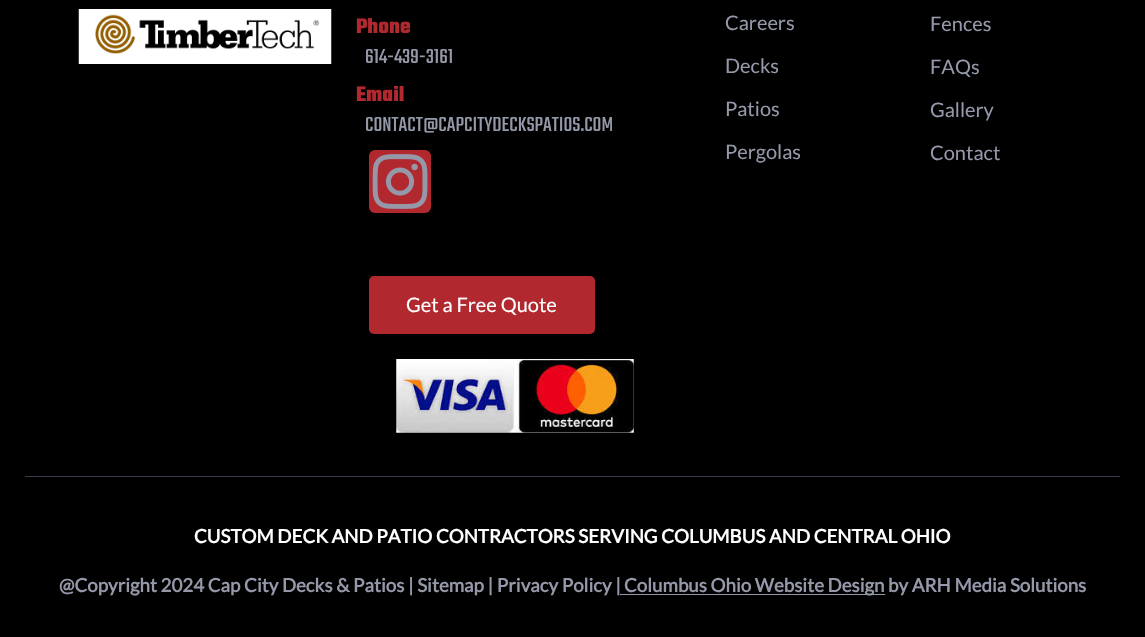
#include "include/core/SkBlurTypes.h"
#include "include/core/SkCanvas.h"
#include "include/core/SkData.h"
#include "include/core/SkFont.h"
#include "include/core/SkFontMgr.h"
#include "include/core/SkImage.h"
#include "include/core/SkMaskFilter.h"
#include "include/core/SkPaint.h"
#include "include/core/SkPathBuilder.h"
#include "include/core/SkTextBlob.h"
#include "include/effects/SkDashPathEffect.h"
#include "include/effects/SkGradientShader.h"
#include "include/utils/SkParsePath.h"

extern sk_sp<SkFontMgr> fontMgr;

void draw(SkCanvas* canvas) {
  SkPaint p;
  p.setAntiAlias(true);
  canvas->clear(SK_ColorBLACK);
  canvas->drawImageRect(SkImages::DeferredFromEncodedData(SkData::MakeFromFileName("images/1.png")), SkRect::MakeLTRB(78, 9, 332, 64), SkSamplingOptions());
  p.setColor(SkColorSetRGB(178, 40, 47));
  canvas->drawRoundRect(SkRect::MakeLTRB(369, 150, 431, 213), 6, 6, p);
  canvas->drawImageRect(SkImages::DeferredFromEncodedData(SkData::MakeFromFileName("images/2.png")), SkRect::MakeLTRB(372, 154, 428, 209), SkSamplingOptions());
  canvas->drawRoundRect(SkRect::MakeLTRB(369, 276, 595, 334), 5, 5, p);
  canvas->drawImageRect(SkImages::DeferredFromEncodedData(SkData::MakeFromFileName("images/3.png")), SkRect::MakeLTRB(396, 359, 634, 433), SkSamplingOptions());
  p.setColor(SkColorSetRGB(57, 61, 78));
  canvas->drawRect(SkRect::MakeLTRB(25, 476, 1120, 477), p);
  p.setColor(SkColorSetRGB(148, 152, 168));
  canvas->drawRect(SkRect::MakeLTRB(620, 594, 885, 595), p);
  SkFont font1(fontMgr->matchFamilyStyle("Teko", SkFontStyle::Bold()), 22.5f);
  font1.setSubpixel(true);
  p.setColor(SkColorSetRGB(178, 40, 47));
  canvas->drawString("Phone", 356, 33, font1, p);
  SkFont font2(fontMgr->matchFamilyStyle("Teko", SkFontStyle::Normal()), 22.5f);
  font2.setSubpixel(true);
  p.setColor(SkColorSetRGB(148, 152, 168));
  canvas->drawString("614-439-3161", 365, 63, font2, p);
  p.setColor(SkColorSetRGB(178, 40, 47));
  canvas->drawString("Email", 356, 101, font1, p);
  p.setColor(SkColorSetRGB(148, 152, 168));
  canvas->drawString("CONTACT@CAPCITYDECKSPATIOS.COM", 365, 131, font2, p);
  SkFont font3(fontMgr->matchFamilyStyle("Lato", SkFontStyle::Normal()), 20);
  font3.setSubpixel(true);
  p.setColor(SK_ColorWHITE);
  canvas->drawString("Get a Free Quote", 406, 312, font3, p);
  p.setColor(SkColorSetRGB(148, 152, 168));
  canvas->drawString("Careers", 725, 30, font3, p);
  canvas->drawString("Decks", 725, 73, font3, p);
  canvas->drawString("Patios", 725, 116, font3, p);
  canvas->drawString("Pergolas", 725, 159, font3, p);
  canvas->drawString("Fences", 930, 31, font3, p);
  canvas->drawString("FAQs", 930, 74, font3, p);
  canvas->drawString("Gallery", 930, 117, font3, p);
  canvas->drawString("Contact", 930, 160, font3, p);
  SkFont font4(fontMgr->matchFamilyStyle("Lato", SkFontStyle::Bold()), 18.75f);
  font4.setSubpixel(true);
  p.setColor(SK_ColorWHITE);
  canvas->drawString("CUSTOM DECK AND PATIO CONTRACTORS SERVING COLUMBUS AND CENTRAL OHIO", 194, 543, font4, p);
  p.setColor(SkColorSetRGB(148, 152, 168));
  canvas->drawString("@Copyright 2024 Cap City Decks & Patios | Sitemap | Privacy Policy |", 59, 592, font4, p);
  canvas->drawString("Columbus Ohio Website Design by ARH Media Solutions", 624, 592, font4, p);
}
